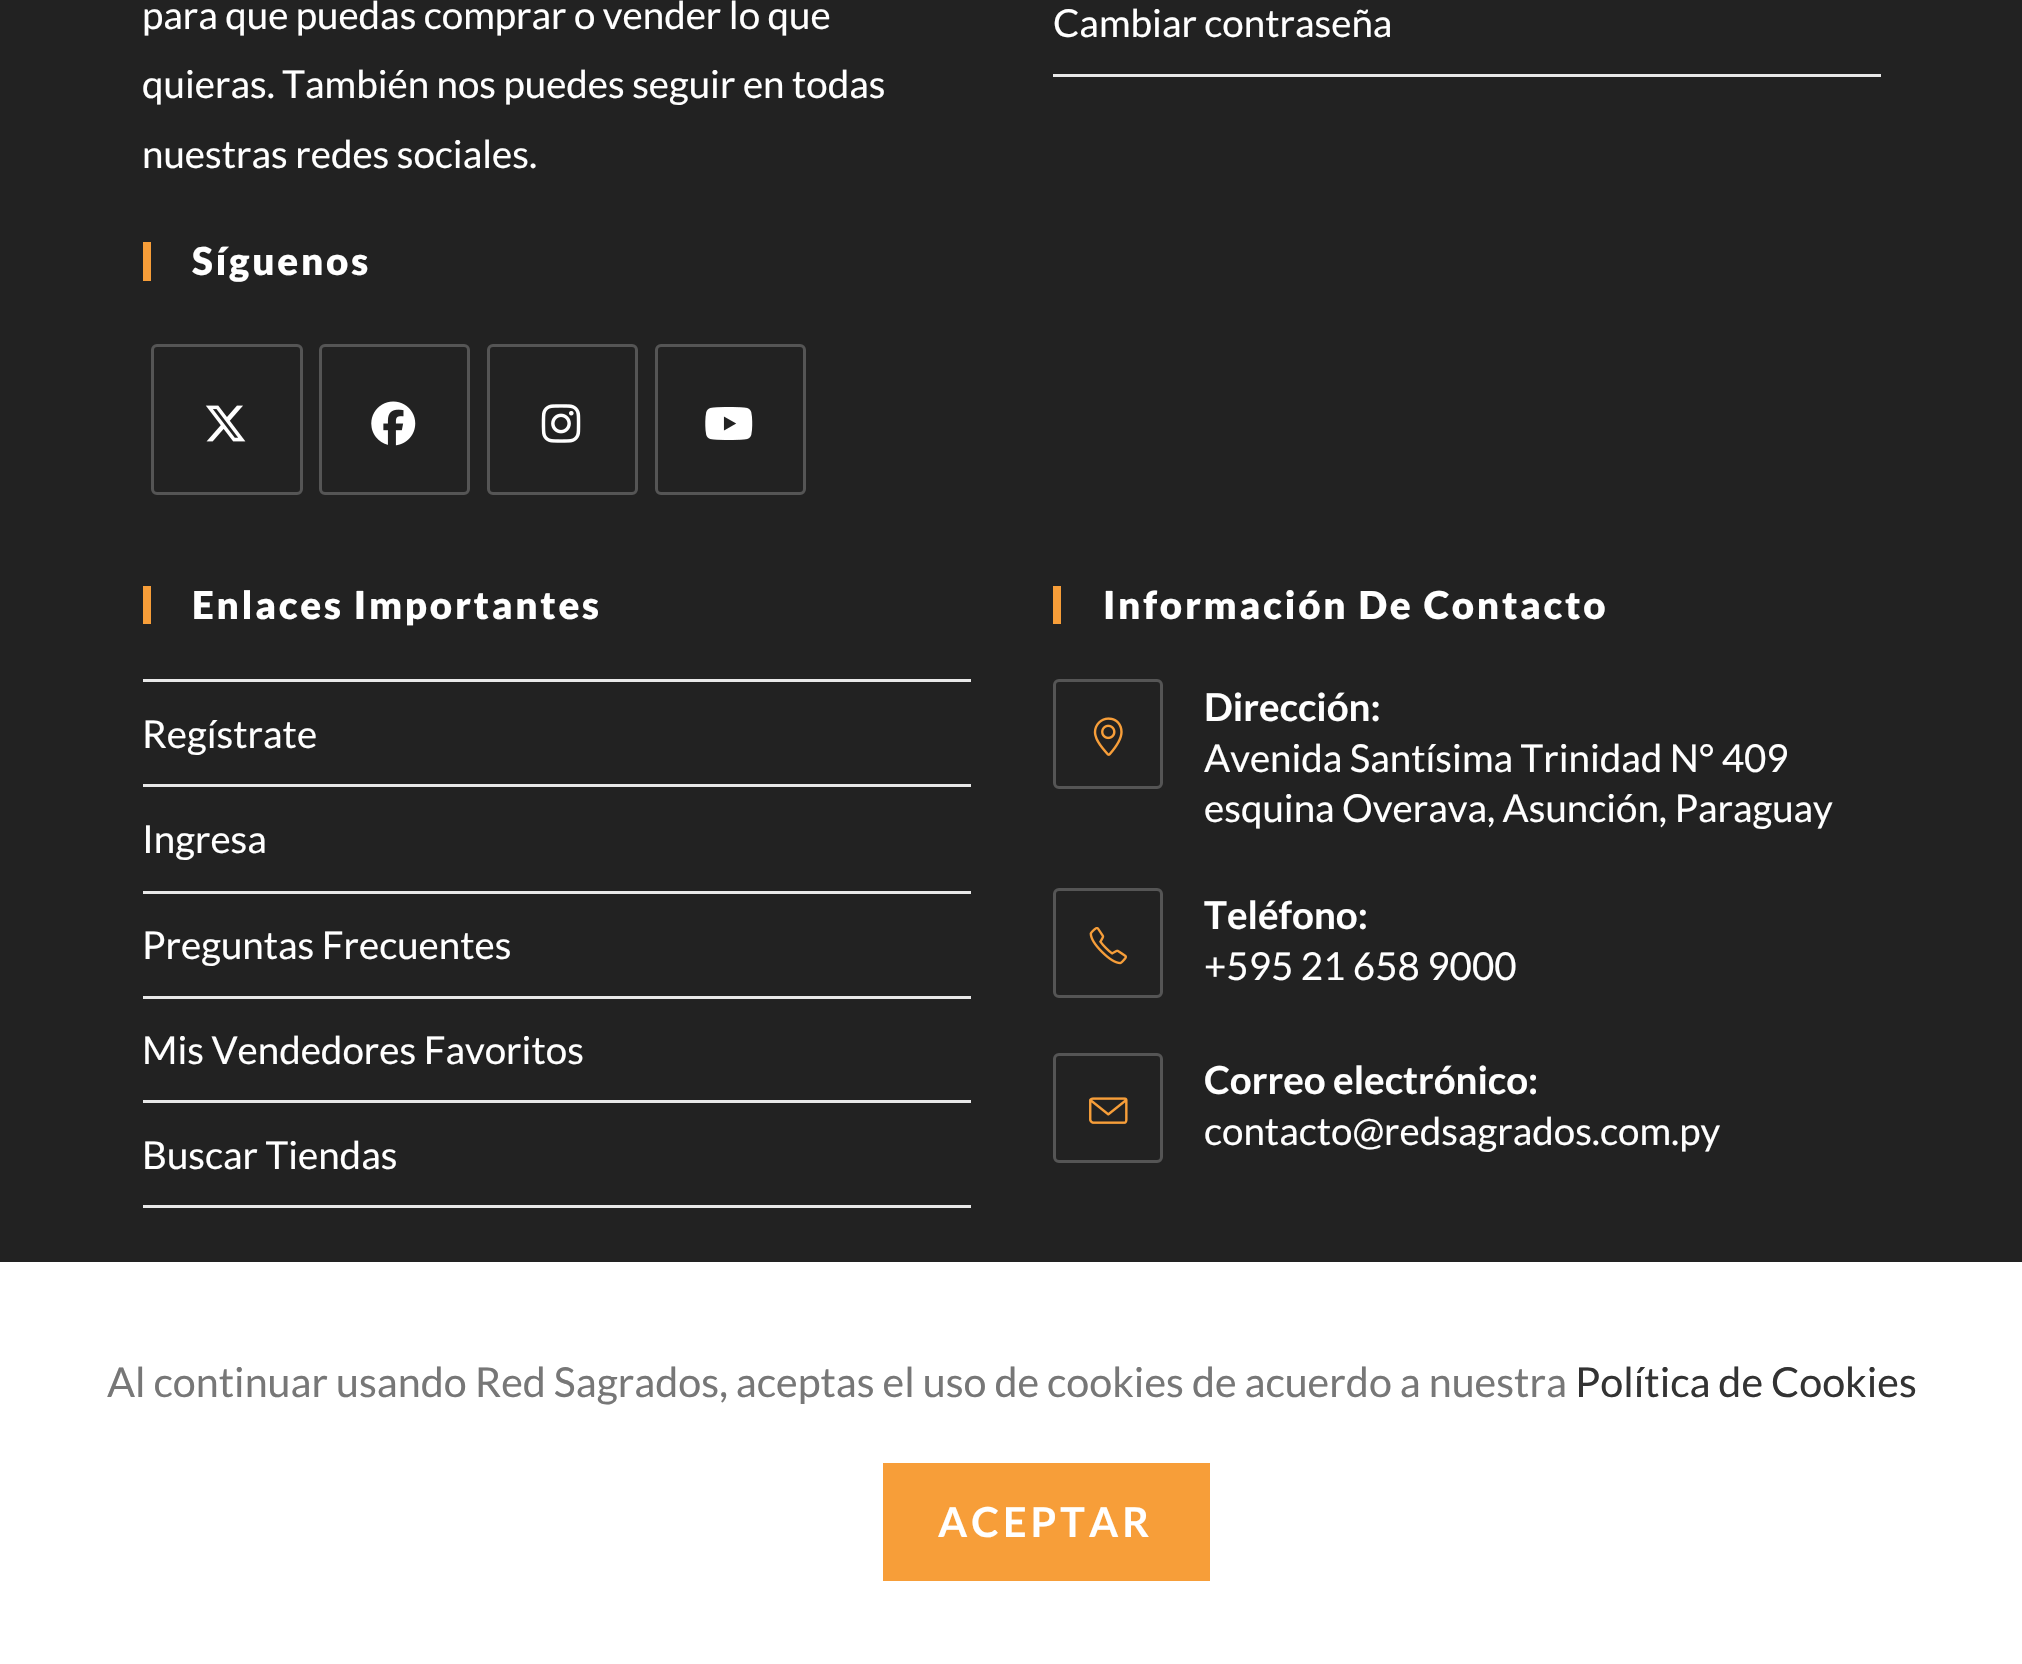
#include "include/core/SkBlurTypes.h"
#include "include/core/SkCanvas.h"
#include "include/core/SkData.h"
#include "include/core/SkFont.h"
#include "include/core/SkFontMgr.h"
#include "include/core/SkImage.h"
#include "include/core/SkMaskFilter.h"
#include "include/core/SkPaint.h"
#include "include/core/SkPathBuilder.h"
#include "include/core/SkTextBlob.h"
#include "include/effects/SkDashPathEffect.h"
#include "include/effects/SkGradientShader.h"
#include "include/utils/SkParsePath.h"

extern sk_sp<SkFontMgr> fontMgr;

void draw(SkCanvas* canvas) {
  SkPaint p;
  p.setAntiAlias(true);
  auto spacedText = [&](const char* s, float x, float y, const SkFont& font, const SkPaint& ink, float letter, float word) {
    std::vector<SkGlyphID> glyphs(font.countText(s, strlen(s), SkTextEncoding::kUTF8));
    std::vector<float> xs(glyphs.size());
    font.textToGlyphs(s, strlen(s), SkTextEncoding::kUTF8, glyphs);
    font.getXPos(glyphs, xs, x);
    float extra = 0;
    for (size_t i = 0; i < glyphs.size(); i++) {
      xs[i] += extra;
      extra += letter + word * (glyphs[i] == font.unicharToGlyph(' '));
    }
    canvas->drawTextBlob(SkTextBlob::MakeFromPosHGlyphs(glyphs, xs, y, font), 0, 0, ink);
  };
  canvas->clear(SkColorSetRGB(34, 34, 34));
  p.setColor(SkColorSetRGB(247, 158, 57));
  canvas->drawRect(SkRect::MakeLTRB(143, 242, 151, 281), p);
  p.setStyle(SkPaint::kStroke_Style);
  p.setStrokeWidth(3);
  p.setColor(SkColorSetRGB(85, 85, 85));
  canvas->drawRoundRect(SkRect::MakeLTRB(152.5f, 345.5f, 301.5f, 493.5f), 4.5f, 4.5f, p);
  canvas->drawImageRect(SkImages::DeferredFromEncodedData(SkData::MakeFromFileName("images/1.png")), SkRect::MakeLTRB(205, 405, 246, 442), SkSamplingOptions());
  canvas->drawRoundRect(SkRect::MakeLTRB(320.5f, 345.5f, 468.5f, 493.5f), 4.5f, 4.5f, p);
  canvas->drawImageRect(SkImages::DeferredFromEncodedData(SkData::MakeFromFileName("images/2.png")), SkRect::MakeLTRB(371, 401, 416, 446), SkSamplingOptions());
  canvas->drawRoundRect(SkRect::MakeLTRB(488.5f, 345.5f, 636.5f, 493.5f), 4.5f, 4.5f, p);
  canvas->drawImageRect(SkImages::DeferredFromEncodedData(SkData::MakeFromFileName("images/3.png")), SkRect::MakeLTRB(541, 404, 581, 443), SkSamplingOptions());
  canvas->drawRoundRect(SkRect::MakeLTRB(656.5f, 345.5f, 804.5f, 493.5f), 4.5f, 4.5f, p);
  canvas->drawImageRect(SkImages::DeferredFromEncodedData(SkData::MakeFromFileName("images/4.png")), SkRect::MakeLTRB(705, 407, 753, 440), SkSamplingOptions());
  p.setStyle(SkPaint::kFill_Style);
  p.setColor(SkColorSetRGB(233, 233, 233));
  canvas->drawRect(SkRect::MakeLTRB(1053, 74, 1881, 77), p);
  p.setColor(SkColorSetRGB(247, 158, 57));
  canvas->drawRect(SkRect::MakeLTRB(143, 586, 151, 624), p);
  p.setColor(SkColorSetRGB(233, 233, 233));
  canvas->drawRect(SkRect::MakeLTRB(143, 679, 971, 682), p);
  canvas->drawRect(SkRect::MakeLTRB(143, 784, 971, 787), p);
  canvas->drawRect(SkRect::MakeLTRB(143, 891, 971, 894), p);
  canvas->drawRect(SkRect::MakeLTRB(143, 996, 971, 999), p);
  canvas->drawRect(SkRect::MakeLTRB(143, 1100, 971, 1103), p);
  canvas->drawRect(SkRect::MakeLTRB(143, 1205, 971, 1208), p);
  p.setColor(SkColorSetRGB(247, 158, 57));
  canvas->drawRect(SkRect::MakeLTRB(1053, 586, 1061, 624), p);
  p.setStyle(SkPaint::kStroke_Style);
  p.setColor(SkColorSetRGB(85, 85, 85));
  canvas->drawRoundRect(SkRect::MakeLTRB(1054.5f, 680.5f, 1161.5f, 787.5f), 4.5f, 4.5f, p);
  canvas->drawImageRect(SkImages::DeferredFromEncodedData(SkData::MakeFromFileName("images/5.png")), SkRect::MakeLTRB(1093, 717, 1123, 756), SkSamplingOptions());
  canvas->drawRoundRect(SkRect::MakeLTRB(1054.5f, 889.5f, 1161.5f, 996.5f), 4.5f, 4.5f, p);
  canvas->drawImageRect(SkImages::DeferredFromEncodedData(SkData::MakeFromFileName("images/6.png")), SkRect::MakeLTRB(1089, 927, 1127, 965), SkSamplingOptions());
  canvas->drawRoundRect(SkRect::MakeLTRB(1054.5f, 1054.5f, 1161.5f, 1161.5f), 4.5f, 4.5f, p);
  canvas->drawImageRect(SkImages::DeferredFromEncodedData(SkData::MakeFromFileName("images/7.png")), SkRect::MakeLTRB(1089, 1097, 1128, 1124), SkSamplingOptions());
  p.setStyle(SkPaint::kFill_Style);
  p.setColor(SK_ColorWHITE);
  canvas->drawRect(SkRect::MakeLTRB(0, 1262, 2022, 1664), p);
  p.setColor(SkColorSetRGB(247, 158, 57));
  canvas->drawRect(SkRect::MakeLTRB(883, 1463, 1210, 1581), p);
  SkFont font1(fontMgr->matchFamilyStyle("Lato", SkFontStyle::Normal()), 38.5f);
  font1.setSubpixel(true);
  p.setColor(SK_ColorWHITE);
  canvas->drawString("para que puedas comprar o vender lo que", 142, 29, font1, p);
  canvas->drawString("quieras. También nos puedes seguir en todas", 142, 98, font1, p);
  canvas->drawString("nuestras redes sociales.", 142, 168, font1, p);
  SkFont font2(fontMgr->matchFamilyStyle("Lato", SkFontStyle(900, SkFontStyle::kNormal_Width, SkFontStyle::kUpright_Slant)), 38.5f);
  font2.setSubpixel(true);
  spacedText("Síguenos", 192, 275, font2, p, 2.75f, 0);
  canvas->drawString("Cambiar contraseña", 1053, 37, font1, p);
  spacedText("Enlaces Importantes", 192, 619, font2, p, 2.75f, 0);
  canvas->drawString("Regístrate", 142, 748, font1, p);
  canvas->drawString("Ingresa", 142, 853, font1, p);
  canvas->drawString("Preguntas Frecuentes", 142, 959, font1, p);
  canvas->drawString("Mis Vendedores Favoritos", 142, 1064, font1, p);
  canvas->drawString("Buscar Tiendas", 142, 1169, font1, p);
  spacedText("Información De Contacto", 1103, 619, font2, p, 2.75f, 0);
  SkFont font3(fontMgr->matchFamilyStyle("Lato", SkFontStyle::Bold()), 38.5f);
  font3.setSubpixel(true);
  canvas->drawString("Dirección:", 1204, 721, font3, p);
  canvas->drawString("Avenida Santísima Trinidad N° 409", 1204, 772, font1, p);
  canvas->drawString("esquina Overava, Asunción, Paraguay", 1204, 822, font1, p);
  canvas->drawString("Teléfono:", 1204, 929, font3, p);
  canvas->drawString("+595 21 658 9000", 1204, 980, font1, p);
  canvas->drawString("Correo electrónico:", 1204, 1094, font3, p);
  canvas->drawString("contacto@redsagrados.com.py", 1204, 1145, font1, p);
  SkFont font4(fontMgr->matchFamilyStyle("Lato", SkFontStyle::Normal()), 41.25f);
  font4.setSubpixel(true);
  p.setColor(SkColorSetRGB(119, 119, 119));
  canvas->drawString("Al continuar usando Red Sagrados, aceptas el uso de cookies de acuerdo a nuestra", 107, 1397, font4, p);
  p.setColor(SkColorSetRGB(51, 51, 51));
  canvas->drawString("Política de Cookies", 1575, 1397, font4, p);
  SkFont font5(fontMgr->matchFamilyStyle("Lato", SkFontStyle::Bold()), 41.25f);
  font5.setSubpixel(true);
  p.setColor(SK_ColorWHITE);
  spacedText("ACEPTAR", 938, 1537, font5, p, 4, 0);
}
